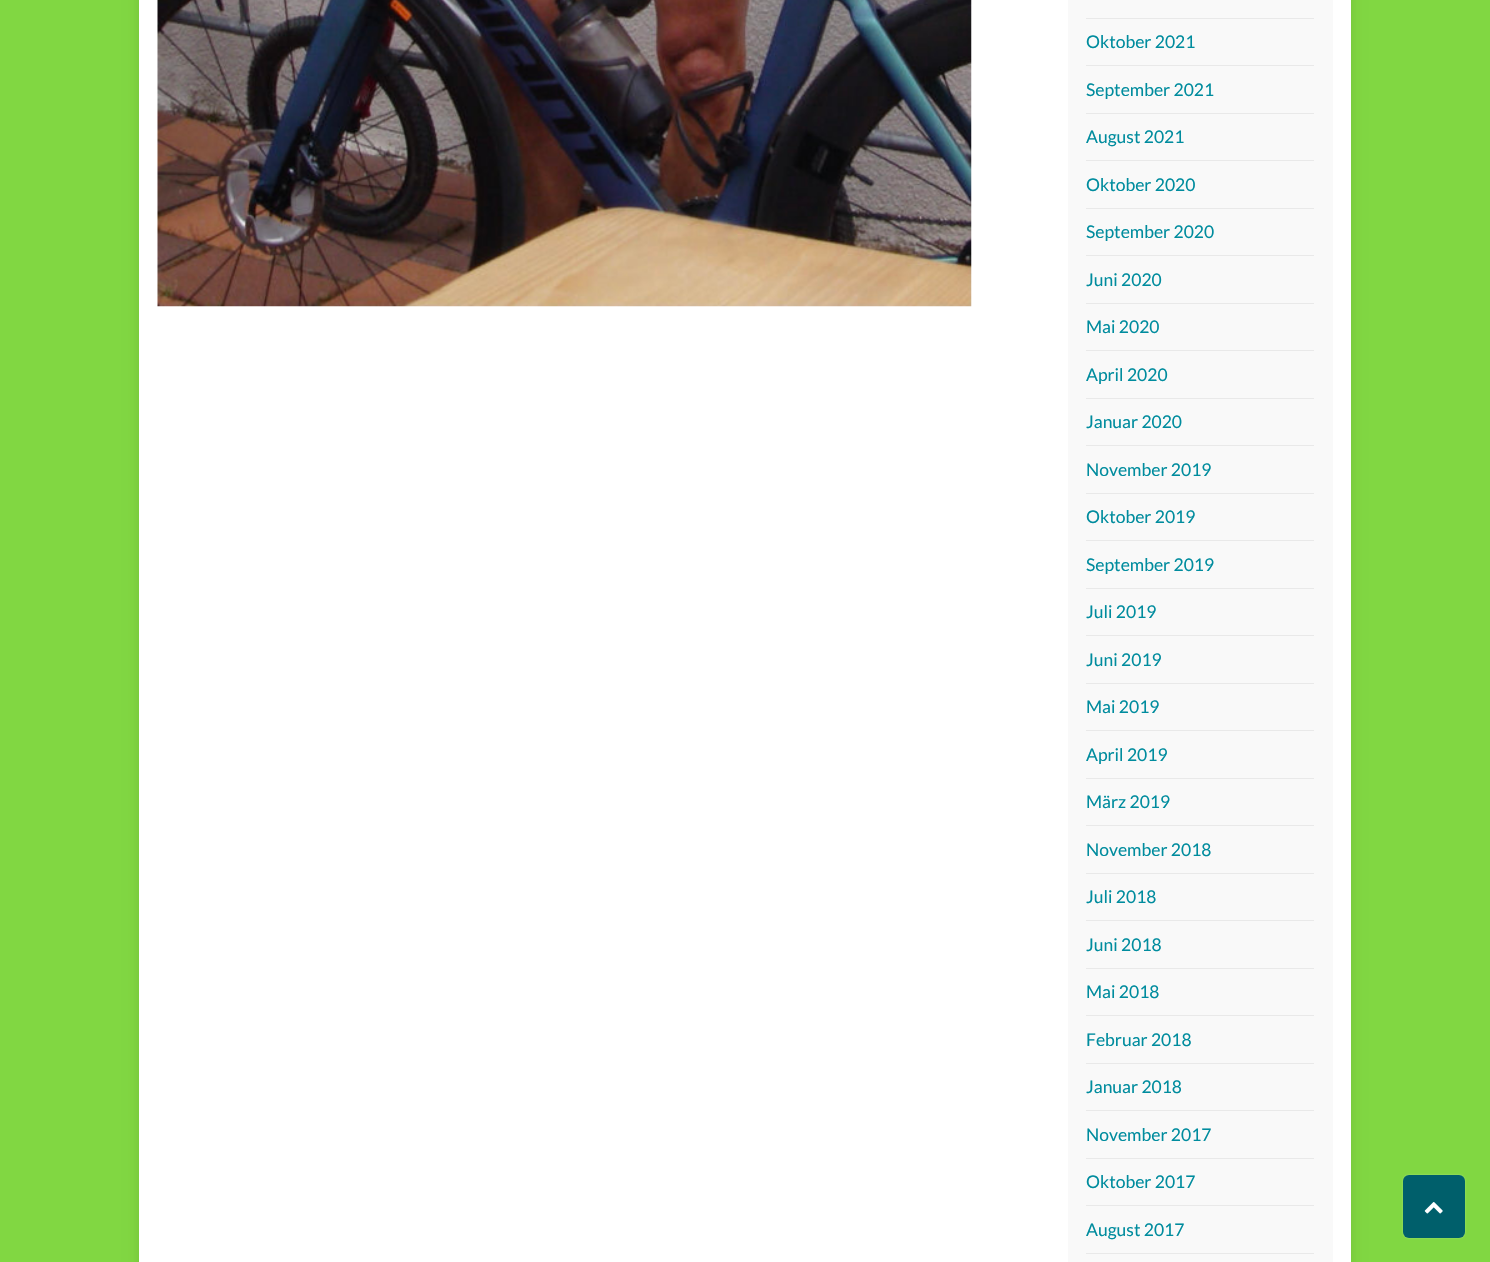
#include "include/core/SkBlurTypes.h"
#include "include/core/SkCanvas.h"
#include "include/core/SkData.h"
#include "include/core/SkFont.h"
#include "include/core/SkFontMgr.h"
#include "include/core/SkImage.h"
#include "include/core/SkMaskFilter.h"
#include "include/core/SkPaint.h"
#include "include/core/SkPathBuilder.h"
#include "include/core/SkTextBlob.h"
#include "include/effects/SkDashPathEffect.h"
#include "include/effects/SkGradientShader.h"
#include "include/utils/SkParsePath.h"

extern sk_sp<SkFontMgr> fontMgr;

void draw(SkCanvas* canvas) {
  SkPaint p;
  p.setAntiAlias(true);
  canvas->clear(SkColorSetRGB(129, 215, 66));
  p.setColor(SkColorSetARGB(26, 0, 0, 0));
  p.setMaskFilter(SkMaskFilter::MakeBlur(kNormal_SkBlurStyle, 6));
  canvas->drawRect(SkRect::MakeLTRB(139, -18, 1351, 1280), p);
  p.setMaskFilter(nullptr);
  p.setColor(SK_ColorWHITE);
  canvas->drawRect(SkRect::MakeLTRB(139, 0, 1351, 1262), p);
  canvas->drawImageRect(SkImages::DeferredFromEncodedData(SkData::MakeFromFileName("images/1.png")), SkRect::MakeLTRB(157, 0, 972, 307), SkSamplingOptions());
  p.setColor(SkColorSetRGB(249, 249, 249));
  canvas->drawRect(SkRect::MakeLTRB(1068, 0, 1333, 1262), p);
  p.setColor(SkColorSetRGB(233, 233, 233));
  canvas->drawRect(SkRect::MakeLTRB(1086, 18, 1314, 19), p);
  canvas->drawRect(SkRect::MakeLTRB(1086, 65, 1314, 66), p);
  canvas->drawRect(SkRect::MakeLTRB(1086, 113, 1314, 114), p);
  canvas->drawRect(SkRect::MakeLTRB(1086, 160, 1314, 161), p);
  canvas->drawRect(SkRect::MakeLTRB(1086, 208, 1314, 209), p);
  canvas->drawRect(SkRect::MakeLTRB(1086, 255, 1314, 256), p);
  canvas->drawRect(SkRect::MakeLTRB(1086, 303, 1314, 304), p);
  canvas->drawRect(SkRect::MakeLTRB(1086, 350, 1314, 351), p);
  canvas->drawRect(SkRect::MakeLTRB(1086, 398, 1314, 399), p);
  canvas->drawRect(SkRect::MakeLTRB(1086, 445, 1314, 446), p);
  canvas->drawRect(SkRect::MakeLTRB(1086, 493, 1314, 494), p);
  canvas->drawRect(SkRect::MakeLTRB(1086, 540, 1314, 541), p);
  canvas->drawRect(SkRect::MakeLTRB(1086, 588, 1314, 589), p);
  canvas->drawRect(SkRect::MakeLTRB(1086, 635, 1314, 636), p);
  canvas->drawRect(SkRect::MakeLTRB(1086, 683, 1314, 684), p);
  canvas->drawRect(SkRect::MakeLTRB(1086, 730, 1314, 731), p);
  canvas->drawRect(SkRect::MakeLTRB(1086, 778, 1314, 779), p);
  canvas->drawRect(SkRect::MakeLTRB(1086, 825, 1314, 826), p);
  canvas->drawRect(SkRect::MakeLTRB(1086, 873, 1314, 874), p);
  canvas->drawRect(SkRect::MakeLTRB(1086, 920, 1314, 921), p);
  canvas->drawRect(SkRect::MakeLTRB(1086, 968, 1314, 969), p);
  canvas->drawRect(SkRect::MakeLTRB(1086, 1015, 1314, 1016), p);
  canvas->drawRect(SkRect::MakeLTRB(1086, 1063, 1314, 1064), p);
  canvas->drawRect(SkRect::MakeLTRB(1086, 1110, 1314, 1111), p);
  canvas->drawRect(SkRect::MakeLTRB(1086, 1158, 1314, 1159), p);
  canvas->drawRect(SkRect::MakeLTRB(1086, 1205, 1314, 1206), p);
  canvas->drawRect(SkRect::MakeLTRB(1086, 1253, 1314, 1254), p);
  p.setColor(SkColorSetARGB(77, 255, 255, 255));
  p.setMaskFilter(SkMaskFilter::MakeBlur(kNormal_SkBlurStyle, 1));
  canvas->drawRoundRect(SkRect::MakeLTRB(1403, 1175, 1465, 1238), 6, 6, p);
  p.setMaskFilter(nullptr);
  p.setColor(SkColorSetRGB(0, 95, 107));
  canvas->drawRoundRect(SkRect::MakeLTRB(1403, 1175, 1465, 1238), 6, 6, p);
  canvas->drawImageRect(SkImages::DeferredFromEncodedData(SkData::MakeFromFileName("images/2.png")), SkRect::MakeLTRB(1424, 1202, 1443, 1214), SkSamplingOptions());
  SkFont font1(fontMgr->matchFamilyStyle("Lato", SkFontStyle::Normal()), 17.5f);
  font1.setSubpixel(true);
  p.setColor(SkColorSetRGB(0, 140, 158));
  canvas->drawString("Oktober 2021", 1086, 48, font1, p);
  canvas->drawString("September 2021", 1086, 96, font1, p);
  canvas->drawString("August 2021", 1086, 143, font1, p);
  canvas->drawString("Oktober 2020", 1086, 191, font1, p);
  canvas->drawString("September 2020", 1086, 238, font1, p);
  canvas->drawString("Juni 2020", 1086, 286, font1, p);
  canvas->drawString("Mai 2020", 1086, 333, font1, p);
  canvas->drawString("April 2020", 1086, 381, font1, p);
  canvas->drawString("Januar 2020", 1086, 428, font1, p);
  canvas->drawString("November 2019", 1086, 476, font1, p);
  canvas->drawString("Oktober 2019", 1086, 523, font1, p);
  canvas->drawString("September 2019", 1086, 571, font1, p);
  canvas->drawString("Juli 2019", 1086, 618, font1, p);
  canvas->drawString("Juni 2019", 1086, 666, font1, p);
  canvas->drawString("Mai 2019", 1086, 713, font1, p);
  canvas->drawString("April 2019", 1086, 761, font1, p);
  canvas->drawString("März 2019", 1086, 808, font1, p);
  canvas->drawString("November 2018", 1086, 856, font1, p);
  canvas->drawString("Juli 2018", 1086, 903, font1, p);
  canvas->drawString("Juni 2018", 1086, 951, font1, p);
  canvas->drawString("Mai 2018", 1086, 998, font1, p);
  canvas->drawString("Februar 2018", 1086, 1046, font1, p);
  canvas->drawString("Januar 2018", 1086, 1093, font1, p);
  canvas->drawString("November 2017", 1086, 1141, font1, p);
  canvas->drawString("Oktober 2017", 1086, 1188, font1, p);
  canvas->drawString("August 2017", 1086, 1236, font1, p);
}
